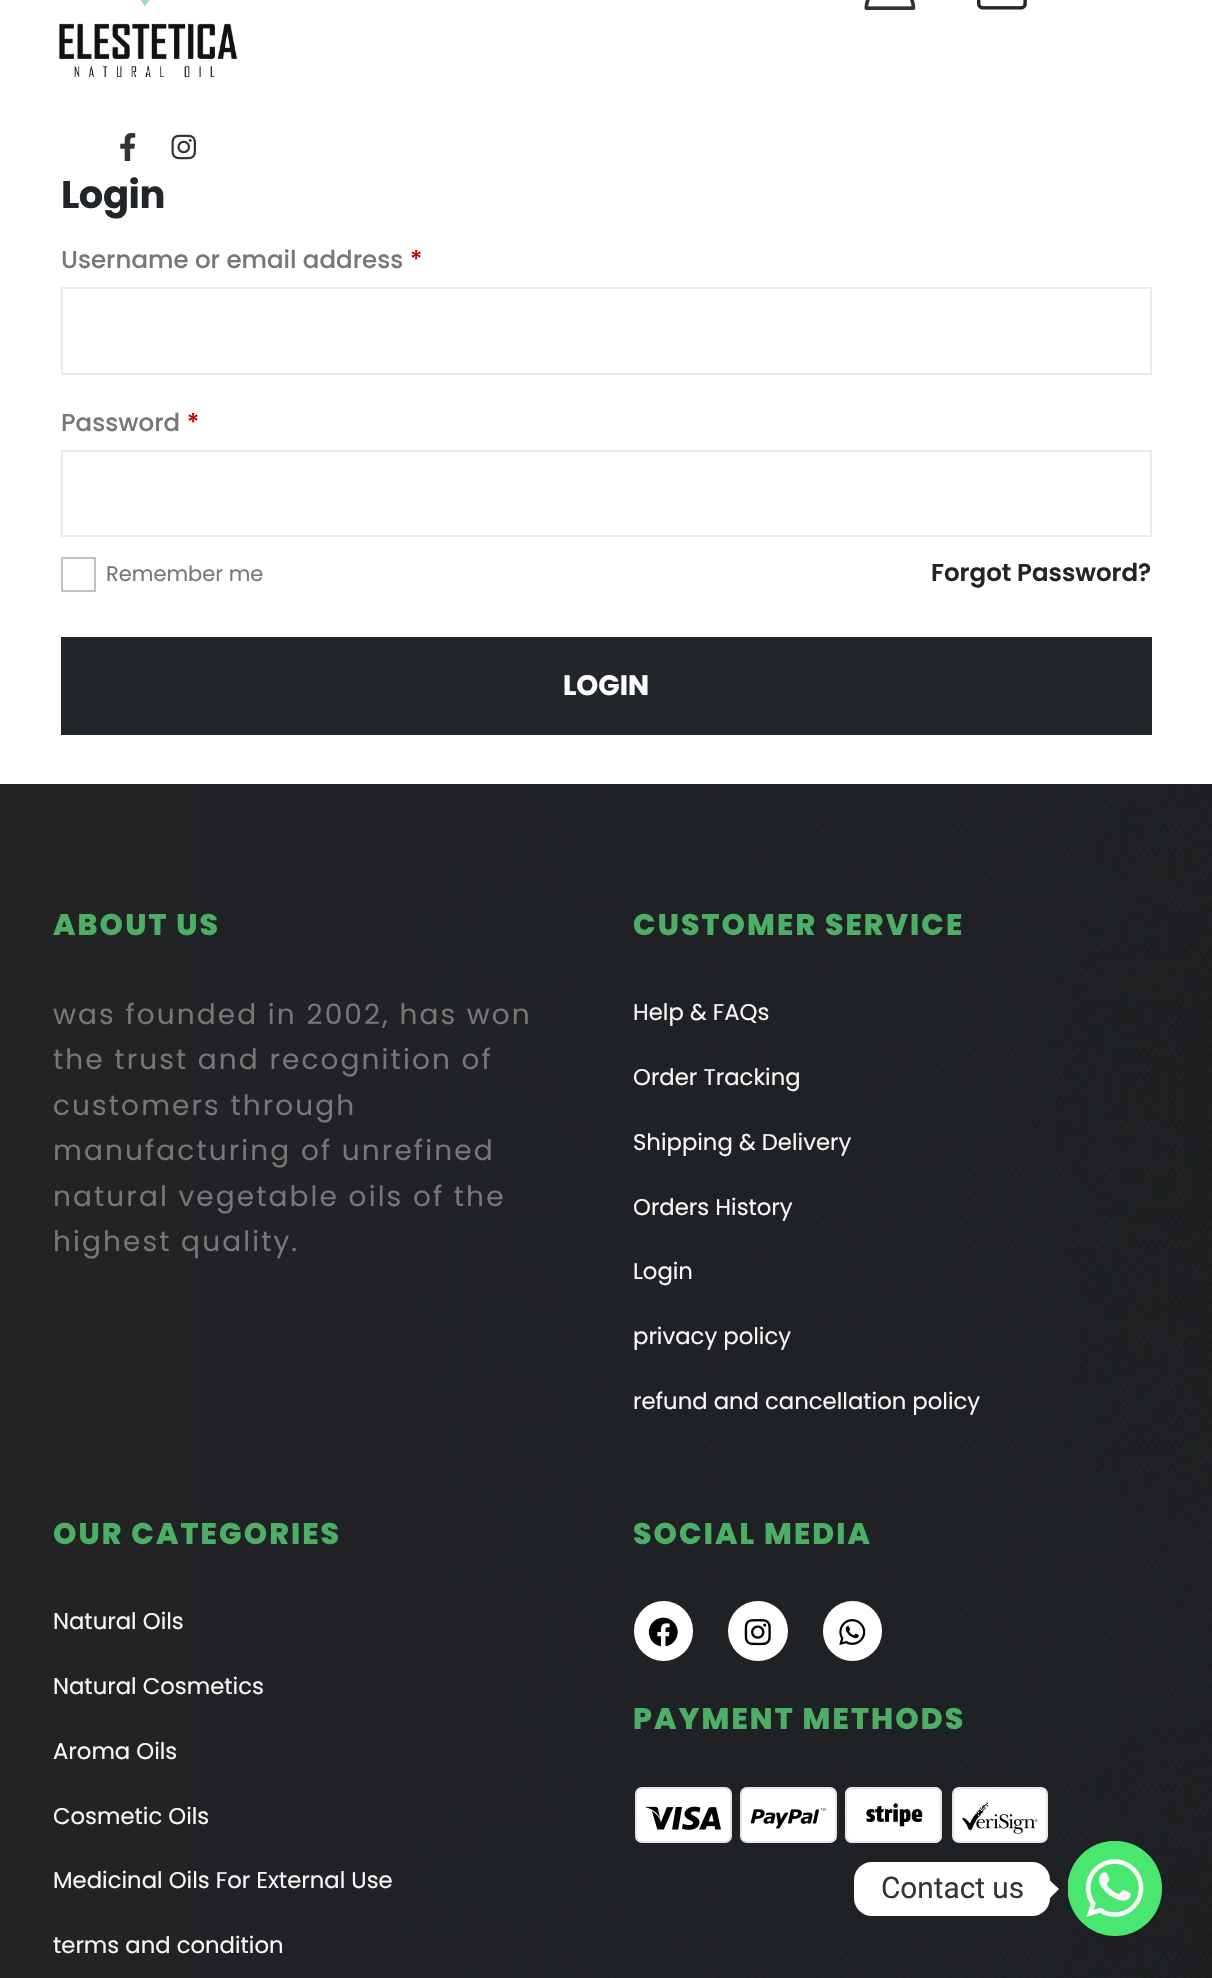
#include "include/core/SkBlurTypes.h"
#include "include/core/SkCanvas.h"
#include "include/core/SkData.h"
#include "include/core/SkFont.h"
#include "include/core/SkFontMgr.h"
#include "include/core/SkImage.h"
#include "include/core/SkMaskFilter.h"
#include "include/core/SkPaint.h"
#include "include/core/SkPathBuilder.h"
#include "include/core/SkTextBlob.h"
#include "include/effects/SkDashPathEffect.h"
#include "include/effects/SkGradientShader.h"
#include "include/utils/SkParsePath.h"

extern sk_sp<SkFontMgr> fontMgr;

void draw(SkCanvas* canvas) {
  SkPaint p;
  p.setAntiAlias(true);
  auto spacedText = [&](const char* s, float x, float y, const SkFont& font, const SkPaint& ink, float letter, float word) {
    std::vector<SkGlyphID> glyphs(font.countText(s, strlen(s), SkTextEncoding::kUTF8));
    std::vector<float> xs(glyphs.size());
    font.textToGlyphs(s, strlen(s), SkTextEncoding::kUTF8, glyphs);
    font.getXPos(glyphs, xs, x);
    float extra = 0;
    for (size_t i = 0; i < glyphs.size(); i++) {
      xs[i] += extra;
      extra += letter + word * (glyphs[i] == font.unicharToGlyph(' '));
    }
    canvas->drawTextBlob(SkTextBlob::MakeFromPosHGlyphs(glyphs, xs, y, font), 0, 0, ink);
  };
  canvas->clear(SK_ColorWHITE);
  canvas->drawImageRect(SkImages::DeferredFromEncodedData(SkData::MakeFromFileName("images/1.png")), SkRect::MakeLTRB(59, 0, 238, 77), SkSamplingOptions());
  canvas->drawImageRect(SkImages::DeferredFromEncodedData(SkData::MakeFromFileName("images/2.png")), SkRect::MakeLTRB(864, 0, 916, 10), SkSamplingOptions());
  canvas->drawImageRect(SkImages::DeferredFromEncodedData(SkData::MakeFromFileName("images/3.png")), SkRect::MakeLTRB(977, 0, 1027, 10), SkSamplingOptions());
  canvas->drawImageRect(SkImages::DeferredFromEncodedData(SkData::MakeFromFileName("images/4.png")), SkRect::MakeLTRB(120, 133, 136, 161), SkSamplingOptions());
  canvas->drawImageRect(SkImages::DeferredFromEncodedData(SkData::MakeFromFileName("images/5.png")), SkRect::MakeLTRB(171, 134, 196, 160), SkSamplingOptions());
  p.setStyle(SkPaint::kStroke_Style);
  p.setStrokeWidth(2);
  p.setColor(SkColorSetRGB(235, 235, 235));
  canvas->drawRect(SkRect::MakeLTRB(62, 288, 1151, 374), p);
  canvas->drawRect(SkRect::MakeLTRB(62, 451, 1151, 536), p);
  p.setColor(SkColorSetRGB(194, 192, 202));
  canvas->drawRect(SkRect::MakeLTRB(62, 558, 95, 591), p);
  p.setStyle(SkPaint::kFill_Style);
  p.setColor(SkColorSetRGB(34, 37, 41));
  canvas->drawRect(SkRect::MakeLTRB(61, 637, 1152, 735), p);
  p.setColor(SkColorSetRGB(34, 35, 37));
  canvas->drawRect(SkRect::MakeLTRB(0, 784, 196, 1978), p);
  canvas->drawImageRect(SkImages::DeferredFromEncodedData(SkData::MakeFromFileName("images/6.png")), SkRect::MakeLTRB(196, 784, 1212, 1978), SkSamplingOptions());
  p.setColor(SK_ColorWHITE);
  canvas->drawRoundRect(SkRect::MakeLTRB(634, 1601, 693, 1661), 29.5f, 29.5f, p);
  canvas->drawImageRect(SkImages::DeferredFromEncodedData(SkData::MakeFromFileName("images/7.png")), SkRect::MakeLTRB(648, 1617, 678, 1647), SkSamplingOptions());
  canvas->drawCircle(758, 1631, 30, p);
  canvas->drawImageRect(SkImages::DeferredFromEncodedData(SkData::MakeFromFileName("images/8.png")), SkRect::MakeLTRB(744, 1619, 771, 1646), SkSamplingOptions());
  canvas->drawRoundRect(SkRect::MakeLTRB(823, 1601, 882, 1661), 29.5f, 29.5f, p);
  canvas->drawImageRect(SkImages::DeferredFromEncodedData(SkData::MakeFromFileName("images/9.png")), SkRect::MakeLTRB(839, 1619, 866, 1645), SkSamplingOptions());
  canvas->drawRoundRect(SkRect::MakeLTRB(636, 1788, 731, 1842), 6, 6, p);
  p.setStyle(SkPaint::kStroke_Style);
  p.setColor(SkColorSetRGB(231, 231, 231));
  canvas->drawRoundRect(SkRect::MakeLTRB(636, 1788, 731, 1842), 6, 6, p);
  canvas->drawImageRect(SkImages::DeferredFromEncodedData(SkData::MakeFromFileName("images/10.png")), SkRect::MakeLTRB(645, 1806, 721, 1830), SkSamplingOptions());
  p.setStyle(SkPaint::kFill_Style);
  p.setColor(SK_ColorWHITE);
  canvas->drawRoundRect(SkRect::MakeLTRB(741, 1788, 836, 1842), 6, 6, p);
  p.setStyle(SkPaint::kStroke_Style);
  p.setColor(SkColorSetRGB(231, 231, 231));
  canvas->drawRoundRect(SkRect::MakeLTRB(741, 1788, 836, 1842), 6, 6, p);
  canvas->drawImageRect(SkImages::DeferredFromEncodedData(SkData::MakeFromFileName("images/11.png")), SkRect::MakeLTRB(750, 1808, 826, 1829), SkSamplingOptions());
  p.setStyle(SkPaint::kFill_Style);
  p.setColor(SK_ColorWHITE);
  canvas->drawRoundRect(SkRect::MakeLTRB(845, 1787, 942, 1843), 7, 7, p);
  canvas->drawImageRect(SkImages::DeferredFromEncodedData(SkData::MakeFromFileName("images/12.png")), SkRect::MakeLTRB(866, 1803, 923, 1827), SkSamplingOptions());
  p.setStyle(SkPaint::kStroke_Style);
  p.setColor(SkColorSetRGB(231, 231, 231));
  canvas->drawRoundRect(SkRect::MakeLTRB(846, 1788, 941, 1842), 6, 6, p);
  p.setStyle(SkPaint::kFill_Style);
  p.setColor(SK_ColorWHITE);
  canvas->drawRoundRect(SkRect::MakeLTRB(953, 1788, 1047, 1842), 6, 6, p);
  p.setStyle(SkPaint::kStroke_Style);
  p.setColor(SkColorSetRGB(231, 231, 231));
  canvas->drawRoundRect(SkRect::MakeLTRB(953, 1788, 1047, 1842), 6, 6, p);
  canvas->drawImageRect(SkImages::DeferredFromEncodedData(SkData::MakeFromFileName("images/13.png")), SkRect::MakeLTRB(962, 1802, 1038, 1834), SkSamplingOptions());
  p.setStyle(SkPaint::kFill_Style);
  p.setColor(SK_ColorWHITE);
  canvas->drawRoundRect(SkRect::MakeLTRB(854, 1862, 1050, 1916), 18, 18, p);
  canvas->drawPath(SkPathBuilder().moveTo(1050, 1898).lineTo(1050, 1880.5f).lineTo(1059, 1889).close().detach(), p);
  p.setColor(SkColorSetRGB(73, 230, 112));
  canvas->drawRoundRect(SkRect::MakeLTRB(1068, 1841, 1162, 1936), 47, 47, p);
  canvas->drawImageRect(SkImages::DeferredFromEncodedData(SkData::MakeFromFileName("images/14.png")), SkRect::MakeLTRB(1068, 1841, 1162, 1930), SkSamplingOptions());
  SkFont font1(fontMgr->matchFamilyStyle("Poppins", SkFontStyle::Bold()), 38.5f);
  font1.setSubpixel(true);
  p.setColor(SkColorSetRGB(34, 37, 41));
  spacedText("Login", 61, 208, font1, p, -0.5f, 0);
  SkFont font2(fontMgr->matchFamilyStyle("Poppins", SkFontStyle(500, SkFontStyle::kNormal_Width, SkFontStyle::kUpright_Slant)), 24.5f);
  font2.setSubpixel(true);
  p.setColor(SkColorSetRGB(119, 119, 119));
  canvas->drawString("Username or email address", 61, 268, font2, p);
  p.setColor(SkColorSetRGB(193, 0, 0));
  canvas->drawString("*", 410, 268, font2, p);
  p.setColor(SkColorSetRGB(119, 119, 119));
  canvas->drawString("Password", 61, 431, font2, p);
  p.setColor(SkColorSetRGB(193, 0, 0));
  canvas->drawString("*", 187, 431, font2, p);
  SkFont font3(fontMgr->matchFamilyStyle("Poppins", SkFontStyle::Normal()), 21);
  font3.setSubpixel(true);
  p.setColor(SkColorSetRGB(119, 119, 119));
  canvas->drawString("Remember me", 106, 581, font3, p);
  SkFont font4(fontMgr->matchFamilyStyle("Poppins", SkFontStyle(600, SkFontStyle::kNormal_Width, SkFontStyle::kUpright_Slant)), 24.5f);
  font4.setSubpixel(true);
  p.setColor(SkColorSetRGB(34, 37, 41));
  canvas->drawString("Forgot Password?", 931, 581, font4, p);
  SkFont font5(fontMgr->matchFamilyStyle("Poppins", SkFontStyle::Bold()), 28);
  font5.setSubpixel(true);
  p.setColor(SK_ColorWHITE);
  canvas->drawString("LOGIN", 563, 695, font5, p);
  SkFont font6(fontMgr->matchFamilyStyle("Poppins", SkFontStyle(800, SkFontStyle::kNormal_Width, SkFontStyle::kUpright_Slant)), 29.75f);
  font6.setSubpixel(true);
  p.setColor(SkColorSetRGB(77, 174, 101));
  spacedText("ABOUT US", 53, 935, font6, p, 2.1f, 0);
  SkFont font7(fontMgr->matchFamilyStyle("Poppins", SkFontStyle::Normal()), 28);
  font7.setSubpixel(true);
  p.setColor(SkColorSetRGB(119, 119, 119));
  spacedText("was founded in 2002, has won", 53, 1024, font7, p, 2.1f, 0);
  spacedText("the trust and recognition of", 53, 1069, font7, p, 2.1f, 0);
  spacedText("customers through", 53, 1115, font7, p, 2.1f, 0);
  spacedText("manufacturing of unrefined", 53, 1160, font7, p, 2.1f, 0);
  spacedText("natural vegetable oils of the", 53, 1206, font7, p, 2.1f, 0);
  spacedText("highest quality.", 53, 1251, font7, p, 2.1f, 0);
  p.setColor(SkColorSetRGB(77, 174, 101));
  spacedText("CUSTOMER SERVICE", 633, 935, font6, p, 2.1f, 0);
  SkFont font8(fontMgr->matchFamilyStyle("Poppins", SkFontStyle::Normal()), 22.75f);
  font8.setSubpixel(true);
  p.setColor(SkColorSetRGB(247, 247, 247));
  canvas->drawString("Help & FAQs", 633, 1020, font8, p);
  canvas->drawString("Order Tracking", 633, 1085, font8, p);
  canvas->drawString("Shipping & Delivery", 633, 1150, font8, p);
  canvas->drawString("Orders History", 633, 1215, font8, p);
  canvas->drawString("Login", 633, 1279, font8, p);
  canvas->drawString("privacy policy", 633, 1344, font8, p);
  canvas->drawString("refund and cancellation policy", 633, 1409, font8, p);
  p.setColor(SkColorSetRGB(77, 174, 101));
  spacedText("OUR CATEGORIES", 53, 1544, font6, p, 2.1f, 0);
  p.setColor(SkColorSetRGB(247, 247, 247));
  canvas->drawString("Natural Oils", 53, 1629, font8, p);
  canvas->drawString("Natural Cosmetics", 53, 1694, font8, p);
  canvas->drawString("Aroma Oils", 53, 1759, font8, p);
  canvas->drawString("Cosmetic Oils", 53, 1824, font8, p);
  canvas->drawString("Medicinal Oils For External Use", 53, 1888, font8, p);
  canvas->drawString("terms and condition", 53, 1953, font8, p);
  p.setColor(SkColorSetRGB(77, 174, 101));
  spacedText("SOCIAL MEDIA", 633, 1544, font6, p, 2.1f, 0);
  spacedText("PAYMENT METHODS", 633, 1729, font6, p, 2.1f, 0);
  SkFont font9(fontMgr->matchFamilyStyle("Roboto", SkFontStyle::Normal()), 29.75f);
  font9.setSubpixel(true);
  p.setColor(SkColorSetRGB(51, 51, 51));
  canvas->drawString("Contact us", 881, 1898, font9, p);
}
